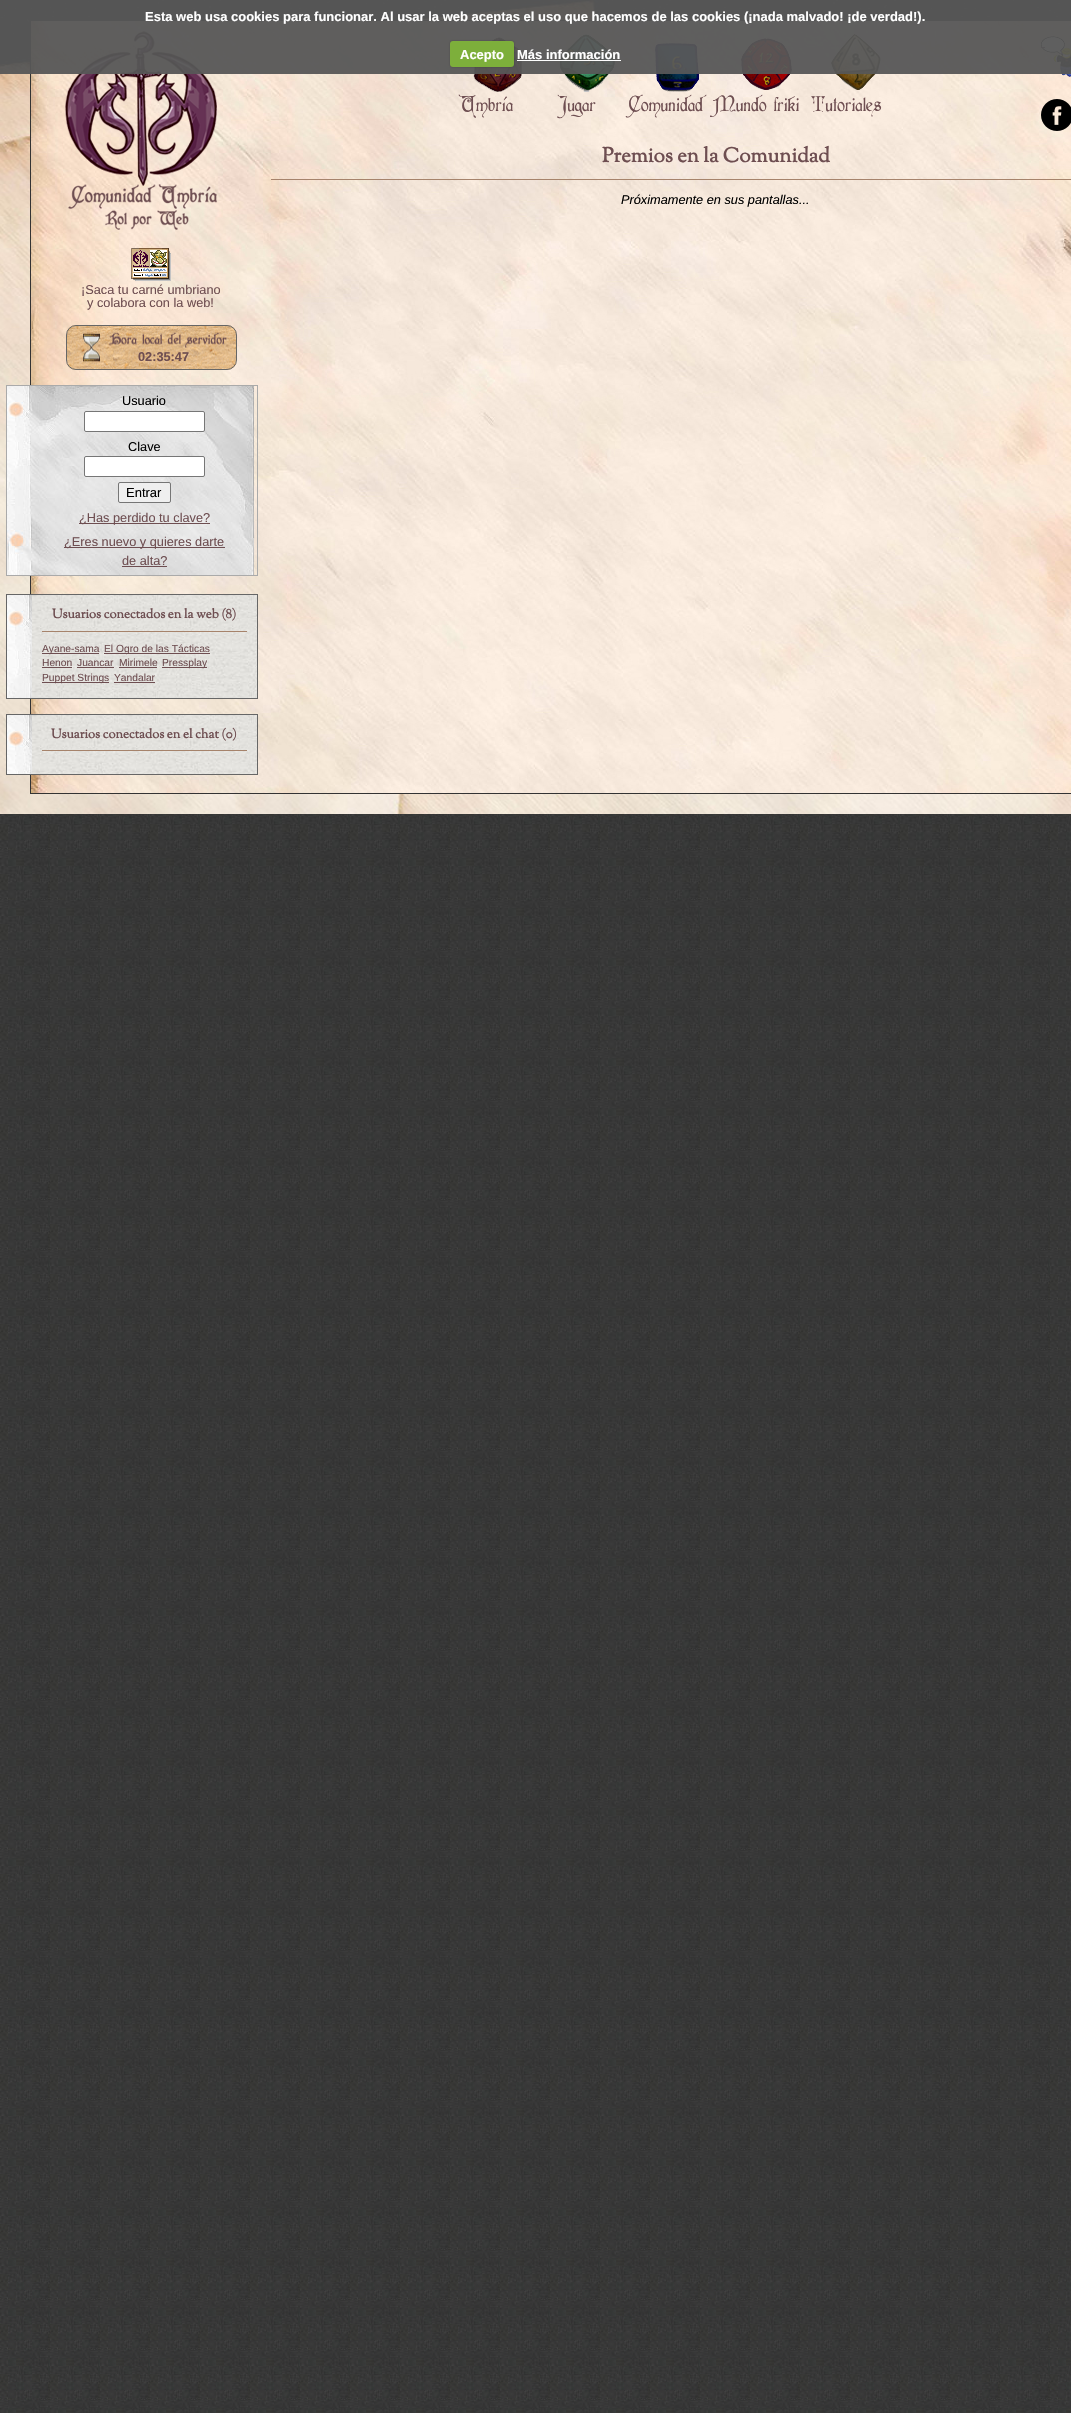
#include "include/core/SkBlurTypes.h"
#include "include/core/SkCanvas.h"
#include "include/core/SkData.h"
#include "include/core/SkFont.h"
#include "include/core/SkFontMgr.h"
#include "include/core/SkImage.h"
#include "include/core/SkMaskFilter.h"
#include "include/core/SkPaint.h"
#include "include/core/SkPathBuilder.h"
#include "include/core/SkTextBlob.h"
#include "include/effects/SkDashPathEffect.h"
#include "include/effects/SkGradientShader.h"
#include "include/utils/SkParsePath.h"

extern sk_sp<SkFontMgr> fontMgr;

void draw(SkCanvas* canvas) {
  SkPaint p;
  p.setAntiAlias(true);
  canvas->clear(SK_ColorWHITE);
  canvas->drawImageRect(SkImages::DeferredFromEncodedData(SkData::MakeFromFileName("images/1.png")), SkRect::MakeLTRB(0, 814, 1071, 2413), SkSamplingOptions());
  canvas->drawImageRect(SkImages::DeferredFromEncodedData(SkData::MakeFromFileName("images/2.png")), SkRect::MakeLTRB(0, 0, 1071, 814), SkSamplingOptions());
  canvas->drawImageRect(SkImages::DeferredFromEncodedData(SkData::MakeFromFileName("images/3.png")), SkRect::MakeLTRB(31, 21, 1071, 793), SkSamplingOptions());
  p.setStyle(SkPaint::kStroke_Style);
  p.setStrokeWidth(1);
  p.setColor(SkColorSetRGB(51, 51, 51));
  canvas->drawRect(SkRect::MakeLTRB(30.5f, 20.5f, 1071.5f, 793.5f), p);
  canvas->drawImageRect(SkImages::DeferredFromEncodedData(SkData::MakeFromFileName("images/4.png")), SkRect::MakeLTRB(473, 37, 522, 92), SkSamplingOptions());
  canvas->drawImageRect(SkImages::DeferredFromEncodedData(SkData::MakeFromFileName("images/5.png")), SkRect::MakeLTRB(559, 34, 615, 92), SkSamplingOptions());
  canvas->drawImageRect(SkImages::DeferredFromEncodedData(SkData::MakeFromFileName("images/6.png")), SkRect::MakeLTRB(655, 43, 699, 92), SkSamplingOptions());
  canvas->drawImageRect(SkImages::DeferredFromEncodedData(SkData::MakeFromFileName("images/7.png")), SkRect::MakeLTRB(741, 38, 792, 90), SkSamplingOptions());
  canvas->drawImageRect(SkImages::DeferredFromEncodedData(SkData::MakeFromFileName("images/8.png")), SkRect::MakeLTRB(831, 34, 881, 90), SkSamplingOptions());
  canvas->drawImageRect(SkImages::DeferredFromEncodedData(SkData::MakeFromFileName("images/9.png")), SkRect::MakeLTRB(1041, 36, 1071, 77), SkSamplingOptions());
  p.setStyle(SkPaint::kFill_Style);
  p.setColor(SkColorSetRGB(110, 78, 81));
  canvas->drawRect(SkRect::MakeLTRB(1041, 47, 1045, 48), p);
  canvas->drawImageRect(SkImages::DeferredFromEncodedData(SkData::MakeFromFileName("images/11.png")), SkRect::MakeLTRB(65, 31, 217, 230), SkSamplingOptions());
  p.setColor(SkColorSetARGB(242, 86, 86, 86));
  canvas->drawRect(SkRect::MakeLTRB(0, 0, 1071, 74), p);
  p.setColor(SkColorSetARGB(64, 0, 0, 0));
  p.setMaskFilter(SkMaskFilter::MakeBlur(kNormal_SkBlurStyle, 1));
  canvas->drawRoundRect(SkRect::MakeLTRB(450, 41, 514, 67), 3, 3, p);
  p.setMaskFilter(nullptr);
  p.setColor(SkColorSetRGB(125, 175, 59));
  canvas->drawRoundRect(SkRect::MakeLTRB(450, 41, 514, 67), 3, 3, p);
  p.setColor(SK_ColorWHITE);
  canvas->drawRect(SkRect::MakeLTRB(517, 60, 621, 61), p);
  canvas->drawImageRect(SkImages::DeferredFromEncodedData(SkData::MakeFromFileName("images/10.png")), SkRect::MakeLTRB(1041, 99, 1071, 131), SkSamplingOptions());
  p.setColor(SkColorSetRGB(166, 131, 107));
  canvas->drawRect(SkRect::MakeLTRB(271, 179, 1071, 180), p);
  canvas->drawImageRect(SkImages::DeferredFromEncodedData(SkData::MakeFromFileName("images/12.png")), SkRect::MakeLTRB(131, 248, 171, 281), SkSamplingOptions());
  canvas->drawImageRect(SkImages::DeferredFromEncodedData(SkData::MakeFromFileName("images/13.png")), SkRect::MakeLTRB(67, 325, 236, 370), SkSamplingOptions());
  p.setStyle(SkPaint::kStroke_Style);
  p.setColor(SkColorSetRGB(102, 102, 102));
  canvas->drawRoundRect(SkRect::MakeLTRB(66.5f, 325.5f, 236.5f, 369.5f), 9.5f, 9.5f, p);
  canvas->drawImageRect(SkImages::DeferredFromEncodedData(SkData::MakeFromFileName("images/14.png")), SkRect::MakeLTRB(7, 386, 254, 575), SkSamplingOptions());
  p.setColor(SkColorSetRGB(170, 170, 170));
  canvas->drawRect(SkRect::MakeLTRB(6.5f, 385.5f, 257.5f, 575.5f), p);
  p.setStyle(SkPaint::kFill_Style);
  p.setColor(SK_ColorWHITE);
  canvas->drawRoundRect(SkRect::MakeLTRB(84.5f, 411.5f, 204.5f, 431.5f), 1.5f, 1.5f, p);
  p.setStyle(SkPaint::kStroke_Style);
  p.setColor(SkColorSetRGB(118, 118, 118));
  canvas->drawRoundRect(SkRect::MakeLTRB(84.5f, 411.5f, 204.5f, 431.5f), 1.5f, 1.5f, p);
  p.setStyle(SkPaint::kFill_Style);
  p.setColor(SK_ColorWHITE);
  canvas->drawRoundRect(SkRect::MakeLTRB(84.5f, 456.5f, 204.5f, 476.5f), 1.5f, 1.5f, p);
  p.setStyle(SkPaint::kStroke_Style);
  p.setColor(SkColorSetRGB(118, 118, 118));
  canvas->drawRoundRect(SkRect::MakeLTRB(84.5f, 456.5f, 204.5f, 476.5f), 1.5f, 1.5f, p);
  p.setStyle(SkPaint::kFill_Style);
  p.setColor(SkColorSetRGB(239, 239, 239));
  canvas->drawRoundRect(SkRect::MakeLTRB(118.5f, 482.5f, 170.5f, 502.5f), 1.5f, 1.5f, p);
  p.setStyle(SkPaint::kStroke_Style);
  p.setColor(SkColorSetRGB(118, 118, 118));
  canvas->drawRoundRect(SkRect::MakeLTRB(118.5f, 482.5f, 170.5f, 502.5f), 1.5f, 1.5f, p);
  p.setStyle(SkPaint::kFill_Style);
  p.setColor(SkColorSetRGB(110, 78, 81));
  canvas->drawRect(SkRect::MakeLTRB(79, 523, 210, 524), p);
  canvas->drawRect(SkRect::MakeLTRB(64, 547, 225, 548), p);
  canvas->drawRect(SkRect::MakeLTRB(122, 566, 167, 567), p);
  canvas->drawImageRect(SkImages::DeferredFromEncodedData(SkData::MakeFromFileName("images/15.png")), SkRect::MakeLTRB(7, 595, 32, 698), SkSamplingOptions());
  p.setStyle(SkPaint::kStroke_Style);
  p.setColor(SkColorSetRGB(102, 102, 102));
  canvas->drawRect(SkRect::MakeLTRB(6.5f, 594.5f, 257.5f, 698.5f), p);
  canvas->drawImageRect(SkImages::DeferredFromEncodedData(SkData::MakeFromFileName("images/16.png")), SkRect::MakeLTRB(32, 595, 257, 698), SkSamplingOptions());
  p.setStyle(SkPaint::kFill_Style);
  p.setColor(SkColorSetRGB(166, 131, 107));
  canvas->drawRect(SkRect::MakeLTRB(42, 631, 247, 632), p);
  p.setColor(SkColorSetRGB(110, 78, 81));
  canvas->drawRect(SkRect::MakeLTRB(42, 653, 99, 654), p);
  canvas->drawRect(SkRect::MakeLTRB(104, 653, 210, 654), p);
  canvas->drawRect(SkRect::MakeLTRB(42, 667, 72, 668), p);
  canvas->drawRect(SkRect::MakeLTRB(77, 667, 114, 668), p);
  canvas->drawRect(SkRect::MakeLTRB(119, 667, 157, 668), p);
  canvas->drawRect(SkRect::MakeLTRB(162, 667, 207, 668), p);
  canvas->drawRect(SkRect::MakeLTRB(42, 682, 109, 683), p);
  canvas->drawRect(SkRect::MakeLTRB(114, 682, 155, 683), p);
  canvas->drawImageRect(SkImages::DeferredFromEncodedData(SkData::MakeFromFileName("images/17.png")), SkRect::MakeLTRB(7, 715, 32, 774), SkSamplingOptions());
  p.setStyle(SkPaint::kStroke_Style);
  p.setColor(SkColorSetRGB(102, 102, 102));
  canvas->drawRect(SkRect::MakeLTRB(6.5f, 714.5f, 257.5f, 774.5f), p);
  canvas->drawImageRect(SkImages::DeferredFromEncodedData(SkData::MakeFromFileName("images/18.png")), SkRect::MakeLTRB(32, 715, 257, 774), SkSamplingOptions());
  p.setStyle(SkPaint::kFill_Style);
  p.setColor(SkColorSetRGB(166, 131, 107));
  canvas->drawRect(SkRect::MakeLTRB(42, 750, 247, 751), p);
  SkFont font1(fontMgr->matchFamilyStyle("Liberation Sans", SkFontStyle::Bold()), 13);
  font1.setSubpixel(true);
  p.setColor(SK_ColorWHITE);
  canvas->drawString("Esta web usa cookies para funcionar. Al usar la web aceptas el uso que hacemos de las cookies (¡nada malvado! ¡de verdad!).", 145, 21, font1, p);
  canvas->drawString("Acepto", 460, 59, font1, p);
  canvas->drawString("Más información", 517, 59, font1, p);
  SkFont font2(fontMgr->matchFamilyStyle("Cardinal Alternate", SkFontStyle::Normal()), 20.5f);
  font2.setSubpixel(true);
  p.setColor(SkColorSetRGB(110, 78, 81));
  canvas->drawString("Umbría", 459, 111, font2, p);
  canvas->drawString("Jugar", 557, 111, font2, p);
  canvas->drawString("Comunidad", 629, 111, font2, p);
  canvas->drawString("Mundo friki", 713, 111, font2, p);
  canvas->drawString("Tutoriales", 811, 111, font2, p);
  SkFont font3(fontMgr->matchFamilyStyle("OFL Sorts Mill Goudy", SkFontStyle::Bold()), 20.5f);
  font3.setSubpixel(true);
  canvas->drawString("Premios en la Comunidad", 602, 162, font3, p);
  SkFont font4(fontMgr->matchFamilyStyle("Liberation Sans", SkFontStyle::Italic()), 12.75f);
  font4.setSubpixel(true);
  p.setColor(SK_ColorBLACK);
  canvas->drawString("Próximamente en sus pantallas...", 621, 204, font4, p);
  SkFont font5(fontMgr->matchFamilyStyle("Liberation Sans", SkFontStyle::Normal()), 12.75f);
  font5.setSubpixel(true);
  p.setColor(SkColorSetRGB(110, 78, 81));
  canvas->drawString("¡Saca tu carné umbriano", 81, 294, font5, p);
  canvas->drawString("y colabora con la web!", 87, 307, font5, p);
  SkFont font6(fontMgr->matchFamilyStyle("Liberation Sans", SkFontStyle::Bold()), 12.75f);
  font6.setSubpixel(true);
  canvas->drawString("02:35:47", 138, 361, font6, p);
  p.setColor(SK_ColorBLACK);
  canvas->drawString("Usuario", 122, 405, font5, p);
  canvas->drawString("Clave", 128, 451, font5, p);
  SkFont font7(fontMgr->matchFamilyStyle("Liberation Sans", SkFontStyle::Normal()), 13);
  font7.setSubpixel(true);
  canvas->drawString("Entrar", 126, 497, font7, p);
  p.setColor(SkColorSetRGB(110, 78, 81));
  canvas->drawString("¿Has perdido tu clave?", 79, 522, font5, p);
  canvas->drawString("¿Eres nuevo y quieres darte", 64, 546, font5, p);
  canvas->drawString("de alta?", 122, 565, font5, p);
  SkFont font8(fontMgr->matchFamilyStyle("OFL Sorts Mill Goudy", SkFontStyle::Bold()), 12.75f);
  font8.setSubpixel(true);
  canvas->drawString("Usuarios conectados en la web (8)", 52, 618, font8, p);
  SkFont font9(fontMgr->matchFamilyStyle("Liberation Sans", SkFontStyle::Normal()), 10.25f);
  font9.setSubpixel(true);
  canvas->drawString("Ayane-sama", 42, 652, font9, p);
  canvas->drawString("El Ogro de las Tácticas", 104, 652, font9, p);
  canvas->drawString("Henon", 42, 666, font9, p);
  canvas->drawString("Juancar", 77, 666, font9, p);
  canvas->drawString("Mirimele", 119, 666, font9, p);
  canvas->drawString("Pressplay", 162, 666, font9, p);
  canvas->drawString("Puppet Strings", 42, 681, font9, p);
  canvas->drawString("Yandalar", 114, 681, font9, p);
  canvas->drawString("Usuarios conectados en el chat (0)", 51, 738, font8, p);
}
